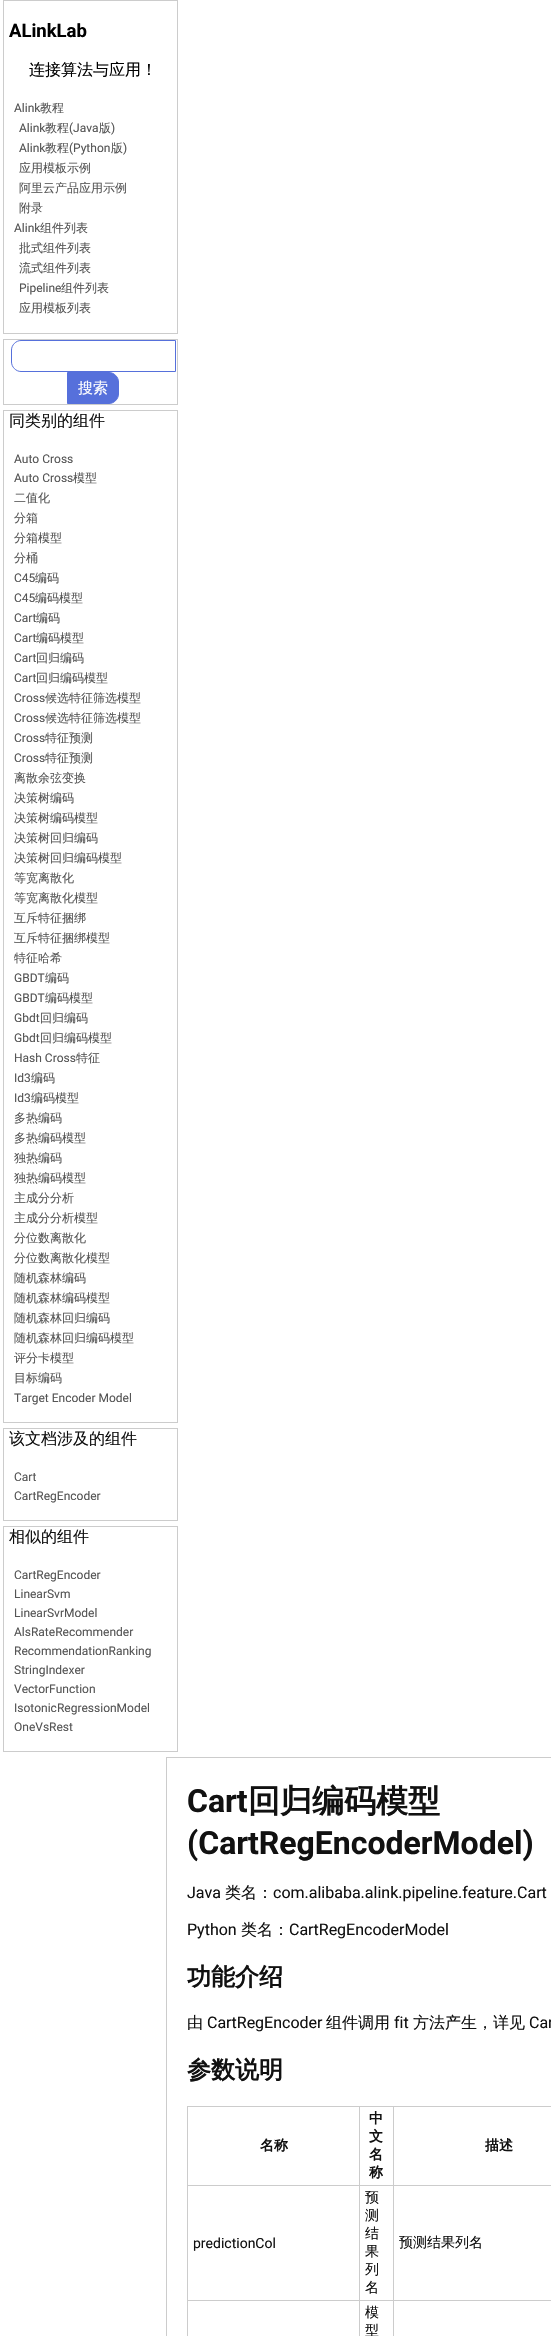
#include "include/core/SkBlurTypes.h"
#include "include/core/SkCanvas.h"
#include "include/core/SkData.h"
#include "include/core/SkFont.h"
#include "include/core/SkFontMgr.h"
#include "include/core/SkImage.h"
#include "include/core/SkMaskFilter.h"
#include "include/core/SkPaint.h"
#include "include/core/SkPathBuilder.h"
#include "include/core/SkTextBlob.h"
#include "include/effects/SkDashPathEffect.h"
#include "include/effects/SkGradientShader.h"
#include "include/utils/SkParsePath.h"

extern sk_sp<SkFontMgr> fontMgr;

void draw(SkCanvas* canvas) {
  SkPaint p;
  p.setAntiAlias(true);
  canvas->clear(SK_ColorWHITE);
  p.setStyle(SkPaint::kStroke_Style);
  p.setStrokeWidth(1);
  p.setColor(SkColorSetRGB(204, 204, 204));
  canvas->drawRect(SkRect::MakeLTRB(3.5f, 0.5f, 177.5f, 333.5f), p);
  canvas->drawRect(SkRect::MakeLTRB(3.5f, 339.5f, 177.5f, 404.5f), p);
  p.setColor(SkColorSetRGB(86, 112, 219));
  canvas->drawPath(SkPathBuilder().moveTo(21, 340.5f).lineTo(175.5f, 340.5f).lineTo(175.5f, 371.5f).lineTo(21, 371.5f).cubicTo(16, 371.5f, 11.5f, 367, 11.5f, 362).lineTo(11.5f, 350).cubicTo(11.5f, 345, 16, 340.5f, 21, 340.5f).close().detach(), p);
  p.setStyle(SkPaint::kFill_Style);
  canvas->drawPath(SkPathBuilder().moveTo(67.5f, 372.5f).lineTo(109, 372.5f).cubicTo(114, 372.5f, 118.5f, 377, 118.5f, 382).lineTo(118.5f, 394).cubicTo(118.5f, 399, 114, 403.5f, 109, 403.5f).lineTo(67.5f, 403.5f).close().detach(), p);
  p.setStyle(SkPaint::kStroke_Style);
  canvas->drawPath(SkPathBuilder().moveTo(67.5f, 372.5f).lineTo(109, 372.5f).cubicTo(114, 372.5f, 118.5f, 377, 118.5f, 382).lineTo(118.5f, 394).cubicTo(118.5f, 399, 114, 403.5f, 109, 403.5f).lineTo(67.5f, 403.5f).close().detach(), p);
  p.setColor(SkColorSetRGB(204, 204, 204));
  canvas->drawRect(SkRect::MakeLTRB(3.5f, 410.5f, 177.5f, 1422.5f), p);
  canvas->drawRect(SkRect::MakeLTRB(3.5f, 1428.5f, 177.5f, 1520.5f), p);
  canvas->drawRect(SkRect::MakeLTRB(3.5f, 1526.5f, 177.5f, 1751.5f), p);
  canvas->drawRect(SkRect::MakeLTRB(166.5f, 1757.5f, 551.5f, 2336.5f), p);
  p.setStyle(SkPaint::kFill_Style);
  canvas->drawRect(SkRect::MakeLTRB(187, 2106, 551, 2107), p);
  canvas->drawRect(SkRect::MakeLTRB(187, 2106, 188, 2336), p);
  canvas->drawRect(SkRect::MakeLTRB(393, 2185, 551, 2186), p);
  canvas->drawRect(SkRect::MakeLTRB(393, 2300, 551, 2301), p);
  canvas->drawRect(SkRect::MakeLTRB(393, 2300, 394, 2336), p);
  canvas->drawRect(SkRect::MakeLTRB(359, 2300, 394, 2301), p);
  canvas->drawRect(SkRect::MakeLTRB(393, 2185, 394, 2301), p);
  canvas->drawRect(SkRect::MakeLTRB(359, 2185, 394, 2186), p);
  canvas->drawRect(SkRect::MakeLTRB(359, 2300, 360, 2336), p);
  canvas->drawRect(SkRect::MakeLTRB(187, 2300, 360, 2301), p);
  canvas->drawRect(SkRect::MakeLTRB(359, 2185, 360, 2301), p);
  canvas->drawRect(SkRect::MakeLTRB(187, 2185, 360, 2186), p);
  canvas->drawRect(SkRect::MakeLTRB(359, 2106, 360, 2186), p);
  canvas->drawRect(SkRect::MakeLTRB(393, 2106, 394, 2186), p);
  SkFont font1(fontMgr->matchFamilyStyle("Roboto", SkFontStyle::Bold()), 18.5f);
  font1.setSubpixel(true);
  p.setColor(SK_ColorBLACK);
  canvas->drawString("ALinkLab", 9, 37, font1, p);
  SkFont font2(fontMgr->matchFamilyStyle("WenQuanYi Zen Hei", SkFontStyle(500, SkFontStyle::kNormal_Width, SkFontStyle::kUpright_Slant)), 16);
  font2.setSubpixel(true);
  canvas->drawString("连接算法与应用！", 29, 75, font2, p);
  SkFont font3(fontMgr->matchFamilyStyle("Roboto", SkFontStyle::Normal()), 12);
  font3.setSubpixel(true);
  p.setColor(SkColorSetRGB(85, 85, 85));
  canvas->drawString("Alink", 14, 112, font3, p);
  SkFont font4(fontMgr->matchFamilyStyle("WenQuanYi Zen Hei", SkFontStyle(500, SkFontStyle::kNormal_Width, SkFontStyle::kUpright_Slant)), 12);
  font4.setSubpixel(true);
  canvas->drawString("教程", 40, 112, font4, p);
  canvas->drawString("Alink", 19, 132, font3, p);
  canvas->drawString("教程", 45, 132, font4, p);
  canvas->drawString("(Java", 69, 132, font3, p);
  canvas->drawString("版", 99, 132, font4, p);
  canvas->drawString(")", 111, 132, font3, p);
  canvas->drawString("Alink", 19, 152, font3, p);
  canvas->drawString("教程", 45, 152, font4, p);
  canvas->drawString("(Python", 69, 152, font3, p);
  canvas->drawString("版", 111, 152, font4, p);
  canvas->drawString(")", 123, 152, font3, p);
  canvas->drawString("应用模板示例", 19, 172, font4, p);
  canvas->drawString("阿里云产品应用示例", 19, 192, font4, p);
  canvas->drawString("附录", 19, 212, font4, p);
  canvas->drawString("Alink", 14, 232, font3, p);
  canvas->drawString("组件列表", 40, 232, font4, p);
  canvas->drawString("批式组件列表", 19, 252, font4, p);
  canvas->drawString("流式组件列表", 19, 272, font4, p);
  canvas->drawString("Pipeline", 19, 292, font3, p);
  canvas->drawString("组件列表", 61, 292, font4, p);
  canvas->drawString("应用模板列表", 19, 312, font4, p);
  SkFont font5(fontMgr->matchFamilyStyle("WenQuanYi Zen Hei", SkFontStyle(500, SkFontStyle::kNormal_Width, SkFontStyle::kUpright_Slant)), 15);
  font5.setSubpixel(true);
  p.setColor(SK_ColorWHITE);
  canvas->drawString("搜索", 78, 393, font5, p);
  p.setColor(SkColorSetRGB(17, 17, 17));
  canvas->drawString("同类别的组件", 9, 426, font2, p);
  p.setColor(SkColorSetRGB(85, 85, 85));
  canvas->drawString("Auto Cross", 14, 463, font3, p);
  canvas->drawString("Auto Cross", 14, 482, font3, p);
  canvas->drawString("模型", 73, 482, font4, p);
  canvas->drawString("二值化", 14, 502, font4, p);
  canvas->drawString("分箱", 14, 522, font4, p);
  canvas->drawString("分箱模型", 14, 542, font4, p);
  canvas->drawString("分桶", 14, 562, font4, p);
  canvas->drawString("C45", 14, 582, font3, p);
  canvas->drawString("编码", 35, 582, font4, p);
  canvas->drawString("C45", 14, 602, font3, p);
  canvas->drawString("编码模型", 35, 602, font4, p);
  canvas->drawString("Cart", 14, 622, font3, p);
  canvas->drawString("编码", 36, 622, font4, p);
  canvas->drawString("Cart", 14, 642, font3, p);
  canvas->drawString("编码模型", 36, 642, font4, p);
  canvas->drawString("Cart", 14, 662, font3, p);
  canvas->drawString("回归编码", 36, 662, font4, p);
  canvas->drawString("Cart", 14, 682, font3, p);
  canvas->drawString("回归编码模型", 36, 682, font4, p);
  canvas->drawString("Cross", 14, 702, font3, p);
  canvas->drawString("候选特征筛选模型", 45, 702, font4, p);
  canvas->drawString("Cross", 14, 722, font3, p);
  canvas->drawString("候选特征筛选模型", 45, 722, font4, p);
  canvas->drawString("Cross", 14, 742, font3, p);
  canvas->drawString("特征预测", 45, 742, font4, p);
  canvas->drawString("Cross", 14, 762, font3, p);
  canvas->drawString("特征预测", 45, 762, font4, p);
  canvas->drawString("离散余弦变换", 14, 782, font4, p);
  canvas->drawString("决策树编码", 14, 802, font4, p);
  canvas->drawString("决策树编码模型", 14, 822, font4, p);
  canvas->drawString("决策树回归编码", 14, 842, font4, p);
  canvas->drawString("决策树回归编码模型", 14, 862, font4, p);
  canvas->drawString("等宽离散化", 14, 882, font4, p);
  canvas->drawString("等宽离散化模型", 14, 902, font4, p);
  canvas->drawString("互斥特征捆绑", 14, 922, font4, p);
  canvas->drawString("互斥特征捆绑模型", 14, 942, font4, p);
  canvas->drawString("特征哈希", 14, 962, font4, p);
  canvas->drawString("GBDT", 14, 982, font3, p);
  canvas->drawString("编码", 45, 982, font4, p);
  canvas->drawString("GBDT", 14, 1002, font3, p);
  canvas->drawString("编码模型", 45, 1002, font4, p);
  canvas->drawString("Gbdt", 14, 1022, font3, p);
  canvas->drawString("回归编码", 40, 1022, font4, p);
  canvas->drawString("Gbdt", 14, 1042, font3, p);
  canvas->drawString("回归编码模型", 40, 1042, font4, p);
  canvas->drawString("Hash Cross", 14, 1062, font3, p);
  canvas->drawString("特征", 76, 1062, font4, p);
  canvas->drawString("Id3", 14, 1082, font3, p);
  canvas->drawString("编码", 31, 1082, font4, p);
  canvas->drawString("Id3", 14, 1102, font3, p);
  canvas->drawString("编码模型", 31, 1102, font4, p);
  canvas->drawString("多热编码", 14, 1122, font4, p);
  canvas->drawString("多热编码模型", 14, 1142, font4, p);
  canvas->drawString("独热编码", 14, 1162, font4, p);
  canvas->drawString("独热编码模型", 14, 1182, font4, p);
  canvas->drawString("主成分分析", 14, 1202, font4, p);
  canvas->drawString("主成分分析模型", 14, 1222, font4, p);
  canvas->drawString("分位数离散化", 14, 1242, font4, p);
  canvas->drawString("分位数离散化模型", 14, 1262, font4, p);
  canvas->drawString("随机森林编码", 14, 1282, font4, p);
  canvas->drawString("随机森林编码模型", 14, 1302, font4, p);
  canvas->drawString("随机森林回归编码", 14, 1322, font4, p);
  canvas->drawString("随机森林回归编码模型", 14, 1342, font4, p);
  canvas->drawString("评分卡模型", 14, 1362, font4, p);
  canvas->drawString("目标编码", 14, 1382, font4, p);
  canvas->drawString("Target Encoder Model", 14, 1402, font3, p);
  p.setColor(SkColorSetRGB(17, 17, 17));
  canvas->drawString("该文档涉及的组件", 9, 1444, font2, p);
  p.setColor(SkColorSetRGB(85, 85, 85));
  canvas->drawString("Cart", 14, 1481, font3, p);
  canvas->drawString("CartRegEncoder", 14, 1500, font3, p);
  p.setColor(SkColorSetRGB(17, 17, 17));
  canvas->drawString("相似的组件", 9, 1542, font2, p);
  p.setColor(SkColorSetRGB(85, 85, 85));
  canvas->drawString("CartRegEncoder", 14, 1579, font3, p);
  canvas->drawString("LinearSvm", 14, 1598, font3, p);
  canvas->drawString("LinearSvrModel", 14, 1617, font3, p);
  canvas->drawString("AlsRateRecommender", 14, 1636, font3, p);
  canvas->drawString("RecommendationRanking", 14, 1655, font3, p);
  canvas->drawString("StringIndexer", 14, 1674, font3, p);
  canvas->drawString("VectorFunction", 14, 1693, font3, p);
  canvas->drawString("IsotonicRegressionModel", 14, 1712, font3, p);
  canvas->drawString("OneVsRest", 14, 1731, font3, p);
  SkFont font6(fontMgr->matchFamilyStyle("Roboto", SkFontStyle::Bold()), 32);
  font6.setSubpixel(true);
  p.setColor(SkColorSetRGB(17, 17, 17));
  canvas->drawString("Cart", 187, 1812, font6, p);
  SkFont font7(fontMgr->matchFamilyStyle("WenQuanYi Zen Hei", SkFontStyle::Bold()), 32);
  font7.setSubpixel(true);
  canvas->drawString("回归编码模型", 248, 1812, font7, p);
  canvas->drawString("(CartRegEncoderModel)", 187, 1854, font6, p);
  SkFont font8(fontMgr->matchFamilyStyle("Roboto", SkFontStyle::Normal()), 16);
  font8.setSubpixel(true);
  canvas->drawString("Java", 187, 1898, font8, p);
  canvas->drawString("类名：", 225, 1898, font2, p);
  canvas->drawString("com.alibaba.alink.pipeline.feature.Cart", 273, 1898, font8, p);
  canvas->drawString("Python", 187, 1935, font8, p);
  canvas->drawString("类名：", 241, 1935, font2, p);
  canvas->drawString("CartRegEncoderModel", 289, 1935, font8, p);
  SkFont font9(fontMgr->matchFamilyStyle("WenQuanYi Zen Hei", SkFontStyle::Bold()), 24);
  font9.setSubpixel(true);
  canvas->drawString("功能介绍", 187, 1985, font9, p);
  canvas->drawString("由", 187, 2028, font2, p);
  canvas->drawString("CartRegEncoder", 207, 2028, font8, p);
  canvas->drawString("组件调用", 326, 2028, font2, p);
  canvas->drawString("fit", 394, 2028, font8, p);
  canvas->drawString("方法产生，详见", 413, 2028, font2, p);
  canvas->drawString("Car", 529, 2028, font8, p);
  canvas->drawString("参数说明", 187, 2078, font9, p);
  SkFont font10(fontMgr->matchFamilyStyle("WenQuanYi Zen Hei", SkFontStyle::Bold()), 14);
  font10.setSubpixel(true);
  canvas->drawString("名称", 260, 2150, font10, p);
  canvas->drawString("中", 369, 2123, font10, p);
  canvas->drawString("文", 369, 2141, font10, p);
  canvas->drawString("名", 369, 2159, font10, p);
  canvas->drawString("称", 369, 2177, font10, p);
  canvas->drawString("描述", 485, 2150, font10, p);
  SkFont font11(fontMgr->matchFamilyStyle("Roboto", SkFontStyle::Normal()), 14);
  font11.setSubpixel(true);
  canvas->drawString("predictionCol", 193, 2248, font11, p);
  SkFont font12(fontMgr->matchFamilyStyle("WenQuanYi Zen Hei", SkFontStyle(500, SkFontStyle::kNormal_Width, SkFontStyle::kUpright_Slant)), 14);
  font12.setSubpixel(true);
  canvas->drawString("预", 365, 2202, font12, p);
  canvas->drawString("测", 365, 2220, font12, p);
  canvas->drawString("结", 365, 2238, font12, p);
  canvas->drawString("果", 365, 2256, font12, p);
  canvas->drawString("列", 365, 2274, font12, p);
  canvas->drawString("名", 365, 2292, font12, p);
  canvas->drawString("预测结果列名", 399, 2247, font12, p);
  canvas->drawString("模", 365, 2317, font12, p);
  canvas->drawString("型", 365, 2335, font12, p);
}
